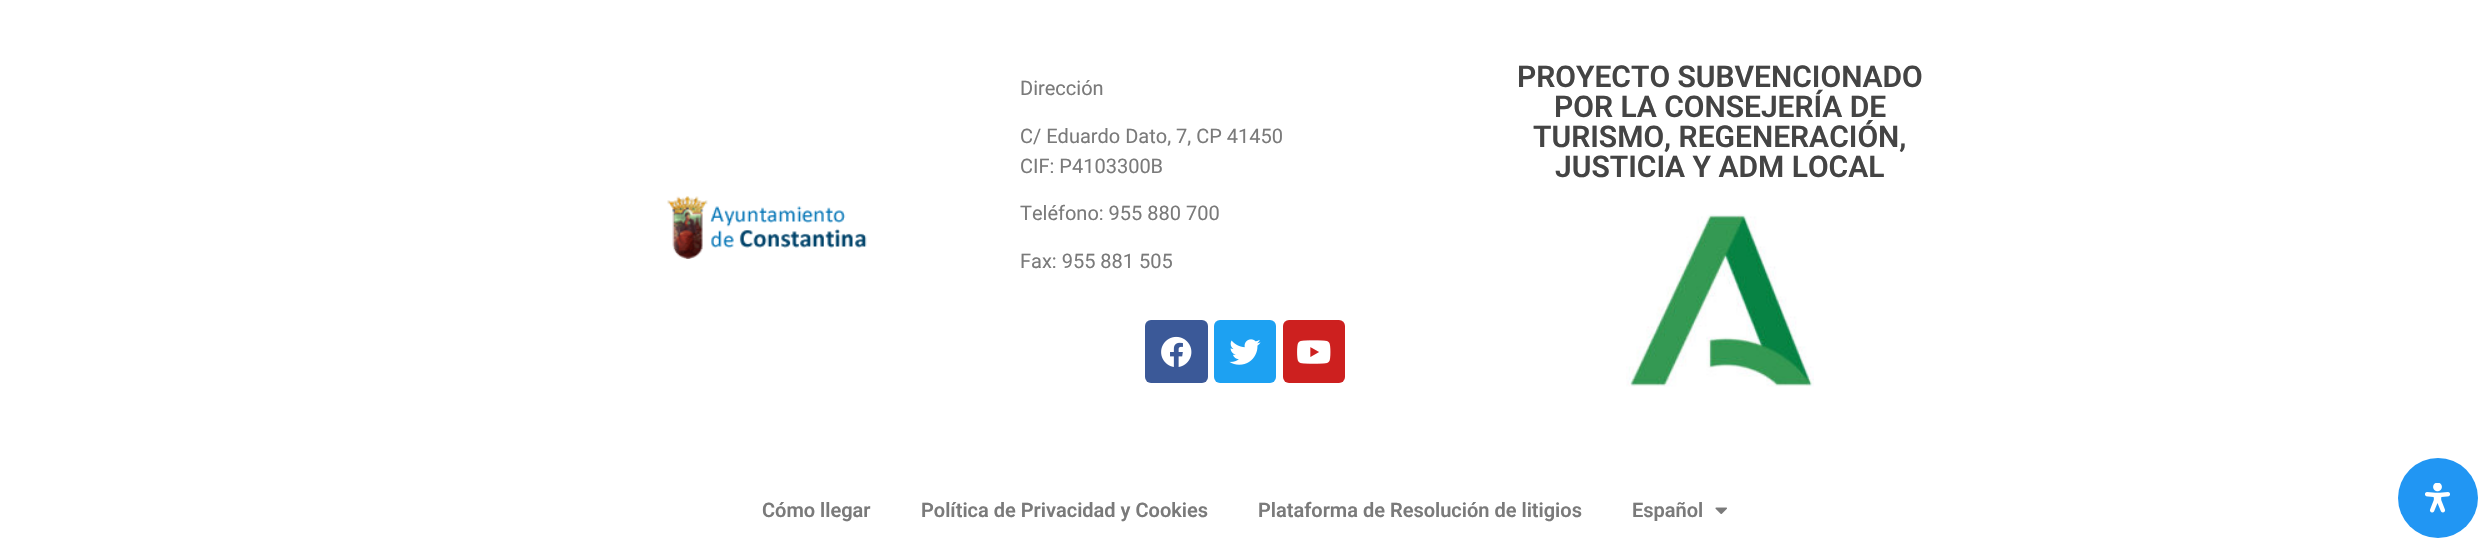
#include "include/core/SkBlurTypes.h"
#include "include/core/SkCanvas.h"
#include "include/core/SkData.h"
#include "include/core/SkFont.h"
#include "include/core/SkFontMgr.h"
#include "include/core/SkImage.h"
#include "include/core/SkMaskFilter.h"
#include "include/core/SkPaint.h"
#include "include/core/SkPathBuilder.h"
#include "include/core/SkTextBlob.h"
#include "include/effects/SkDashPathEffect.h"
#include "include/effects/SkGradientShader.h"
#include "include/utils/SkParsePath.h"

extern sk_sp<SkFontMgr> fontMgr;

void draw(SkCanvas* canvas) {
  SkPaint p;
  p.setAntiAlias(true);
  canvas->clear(SK_ColorWHITE);
  canvas->drawImageRect(SkImages::DeferredFromEncodedData(SkData::MakeFromFileName("images/1.png")), SkRect::MakeLTRB(667, 196, 867, 259), SkSamplingOptions());
  p.setColor(SkColorSetRGB(59, 89, 152));
  canvas->drawRoundRect(SkRect::MakeLTRB(1145, 320, 1208, 383), 6, 6, p);
  canvas->drawImageRect(SkImages::DeferredFromEncodedData(SkData::MakeFromFileName("images/2.png")), SkRect::MakeLTRB(1161, 336, 1192, 367), SkSamplingOptions());
  p.setColor(SkColorSetRGB(29, 161, 242));
  canvas->drawRoundRect(SkRect::MakeLTRB(1214, 320, 1276, 383), 6, 6, p);
  canvas->drawImageRect(SkImages::DeferredFromEncodedData(SkData::MakeFromFileName("images/3.png")), SkRect::MakeLTRB(1229, 339, 1261, 365), SkSamplingOptions());
  p.setColor(SkColorSetRGB(205, 32, 31));
  canvas->drawRoundRect(SkRect::MakeLTRB(1283, 320, 1345, 383), 6, 6, p);
  canvas->drawImageRect(SkImages::DeferredFromEncodedData(SkData::MakeFromFileName("images/4.png")), SkRect::MakeLTRB(1297, 340, 1331, 364), SkSamplingOptions());
  canvas->drawImageRect(SkImages::DeferredFromEncodedData(SkData::MakeFromFileName("images/5.png")), SkRect::MakeLTRB(1626, 214, 1814, 387), SkSamplingOptions());
  canvas->drawImageRect(SkImages::DeferredFromEncodedData(SkData::MakeFromFileName("images/6.png")), SkRect::MakeLTRB(1715, 507, 1727, 514), SkSamplingOptions());
  p.setColor(SkColorSetRGB(33, 150, 243));
  canvas->drawCircle(2438, 498, 40, p);
  canvas->drawImageRect(SkImages::DeferredFromEncodedData(SkData::MakeFromFileName("images/7.png")), SkRect::MakeLTRB(2425, 483, 2450, 513), SkSamplingOptions());
  SkFont font1(fontMgr->matchFamilyStyle("Roboto", SkFontStyle::Normal()), 20);
  font1.setSubpixel(true);
  p.setColor(SkColorSetRGB(122, 122, 122));
  canvas->drawString("Dirección", 1020, 95, font1, p);
  canvas->drawString("C/ Eduardo Dato, 7, CP 41450", 1020, 143, font1, p);
  canvas->drawString("CIF: P4103300B", 1020, 173, font1, p);
  canvas->drawString("Teléfono: 955 880 700", 1020, 220, font1, p);
  canvas->drawString("Fax: 955 881 505", 1020, 268, font1, p);
  SkFont font2(fontMgr->matchFamilyStyle("Roboto", SkFontStyle(600, SkFontStyle::kNormal_Width, SkFontStyle::kUpright_Slant)), 30);
  font2.setSubpixel(true);
  p.setColor(SkColorSetRGB(68, 68, 68));
  canvas->drawString("PROYECTO SUBVENCIONADO", 1517, 87, font2, p);
  canvas->drawString("POR LA CONSEJERÍA DE", 1554, 117, font2, p);
  canvas->drawString("TURISMO, REGENERACIÓN,", 1533, 147, font2, p);
  canvas->drawString("JUSTICIA Y ADM LOCAL", 1555, 177, font2, p);
  SkFont font3(fontMgr->matchFamilyStyle("Roboto", SkFontStyle(600, SkFontStyle::kNormal_Width, SkFontStyle::kUpright_Slant)), 20);
  font3.setSubpixel(true);
  p.setColor(SkColorSetRGB(122, 122, 122));
  canvas->drawString("Cómo llegar", 762, 517, font3, p);
  canvas->drawString("Política de Privacidad y Cookies", 921, 517, font3, p);
  canvas->drawString("Plataforma de Resolución de litigios", 1258, 517, font3, p);
  canvas->drawString("Español", 1632, 517, font3, p);
}
